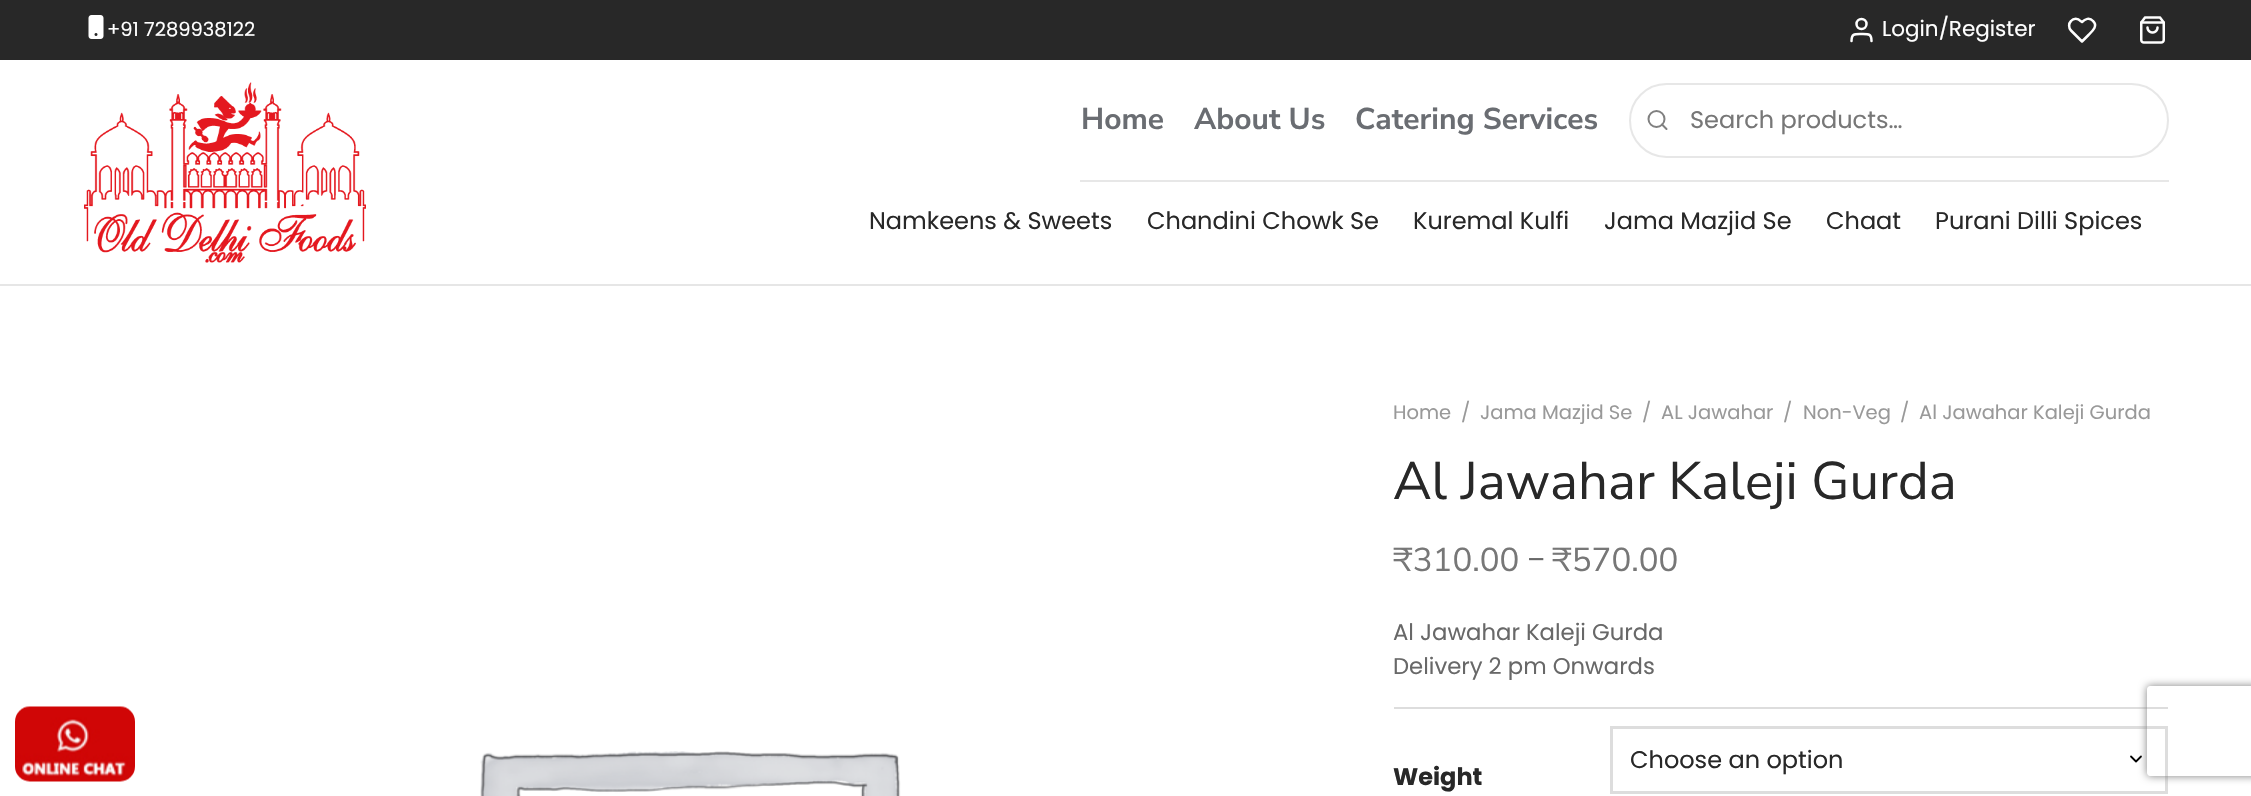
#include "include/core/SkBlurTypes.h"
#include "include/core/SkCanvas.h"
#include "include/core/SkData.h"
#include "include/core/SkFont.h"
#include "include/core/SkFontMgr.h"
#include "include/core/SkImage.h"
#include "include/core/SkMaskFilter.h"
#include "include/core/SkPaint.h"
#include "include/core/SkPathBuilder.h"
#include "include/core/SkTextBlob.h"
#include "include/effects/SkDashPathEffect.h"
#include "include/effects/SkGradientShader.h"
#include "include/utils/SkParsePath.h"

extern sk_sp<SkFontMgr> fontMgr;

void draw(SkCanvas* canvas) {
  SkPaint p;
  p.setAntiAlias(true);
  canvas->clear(SK_ColorWHITE);
  canvas->drawImageRect(SkImages::DeferredFromEncodedData(SkData::MakeFromFileName("images/1.png")), SkRect::MakeLTRB(15, 706, 135, 782), SkSamplingOptions());
  p.setColor(SkColorSetRGB(40, 40, 40));
  canvas->drawRect(SkRect::MakeLTRB(0, 0, 2251, 60), p);
  canvas->drawImageRect(SkImages::DeferredFromEncodedData(SkData::MakeFromFileName("images/2.png")), SkRect::MakeLTRB(88, 15, 104, 39), SkSamplingOptions());
  p.setStyle(SkPaint::kStroke_Style);
  p.setStrokeWidth(2.5f);
  p.setColor(SK_ColorWHITE);
  canvas->drawCircle(1861.5f, 24, 5, p);
  p.setStrokeCap(SkPaint::kRound_Cap);
  p.setStrokeJoin(SkPaint::kRound_Join);
  canvas->drawPath(SkPathBuilder().moveTo(1871.5f, 41).cubicTo(1871.5f, 33.5f, 1868.5f, 34, 1861.5f, 34).cubicTo(1854.5f, 34, 1851.5f, 33.5f, 1851.5f, 41).detach(), p);
  canvas->drawPath(SkPathBuilder().moveTo(2093, 21).cubicTo(2089.5f, 17, 2085, 19, 2082, 22).lineTo(2080.5f, 21).cubicTo(2078, 18, 2073.5f, 18, 2071, 21).cubicTo(2068.5f, 23.5f, 2068.5f, 28, 2071, 30.5f).lineTo(2082, 41.5f).lineTo(2088.5f, 35).cubicTo(2092, 31.5f, 2098.5f, 26, 2093, 21).close().detach(), p);
  canvas->drawImageRect(SkImages::DeferredFromEncodedData(SkData::MakeFromFileName("images/3.png")), SkRect::MakeLTRB(2140, 16, 2165, 44), SkSamplingOptions());
  canvas->drawImageRect(SkImages::DeferredFromEncodedData(SkData::MakeFromFileName("images/4.png")), SkRect::MakeLTRB(84, 82, 366, 263), SkSamplingOptions());
  p.setStyle(SkPaint::kFill_Style);
  p.setColor(SkColorSetRGB(231, 231, 231));
  canvas->drawRect(SkRect::MakeLTRB(1080, 180, 2169, 182), p);
  p.setStyle(SkPaint::kStroke_Style);
  p.setStrokeWidth(2);
  p.setStrokeCap(SkPaint::kButt_Cap);
  p.setStrokeJoin(SkPaint::kMiter_Join);
  canvas->drawRoundRect(SkRect::MakeLTRB(1630, 84, 2168, 157), 36.5f, 36.5f, p);
  p.setColor(SkColorSetRGB(128, 128, 128));
  canvas->drawCircle(1656.5f, 119, 8, p);
  p.setStrokeCap(SkPaint::kRound_Cap);
  p.setStrokeJoin(SkPaint::kRound_Join);
  canvas->drawPath(SkPathBuilder().moveTo(1666.5f, 129).lineTo(1662, 124.5f).detach(), p);
  p.setStyle(SkPaint::kFill_Style);
  p.setColor(SkColorSetRGB(230, 230, 230));
  canvas->drawRect(SkRect::MakeLTRB(0, 284, 2251, 286), p);
  canvas->drawImageRect(SkImages::DeferredFromEncodedData(SkData::MakeFromFileName("images/5.png")), SkRect::MakeLTRB(480, 751, 901, 796), SkSamplingOptions());
  p.setColor(SkColorSetRGB(221, 221, 221));
  canvas->drawRect(SkRect::MakeLTRB(1394, 707, 2168, 709), p);
  p.setStyle(SkPaint::kStroke_Style);
  p.setStrokeWidth(1.8f);
  p.setColor(SK_ColorBLACK);
  canvas->drawPath(SkPathBuilder().moveTo(2131, 756.5f).lineTo(2136, 761.5f).lineTo(2141, 756.5f).detach(), p);
  p.setStrokeWidth(3);
  p.setStrokeCap(SkPaint::kButt_Cap);
  p.setStrokeJoin(SkPaint::kMiter_Join);
  p.setColor(SkColorSetRGB(221, 221, 221));
  canvas->drawRect(SkRect::MakeLTRB(1611.5f, 727.5f, 2166.5f, 792.5f), p);
  canvas->save();
  canvas->clipPath(SkPathBuilder(SkPathFillType::kEvenOdd).moveTo(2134, 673).lineTo(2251, 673).lineTo(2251, 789).lineTo(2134, 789).close().moveTo(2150, 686).lineTo(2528, 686).cubicTo(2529.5f, 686, 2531, 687.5f, 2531, 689).lineTo(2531, 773).cubicTo(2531, 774.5f, 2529.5f, 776, 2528, 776).lineTo(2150, 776).cubicTo(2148.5f, 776, 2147, 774.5f, 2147, 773).lineTo(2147, 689).cubicTo(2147, 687.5f, 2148.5f, 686, 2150, 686).close().detach(), true);
  p.setStyle(SkPaint::kFill_Style);
  p.setColor(SkColorSetRGB(128, 128, 128));
  p.setMaskFilter(SkMaskFilter::MakeBlur(kNormal_SkBlurStyle, 4));
  canvas->drawRoundRect(SkRect::MakeLTRB(2147, 686, 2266, 776), 3, 3, p);
  p.setMaskFilter(nullptr);
  canvas->restore();
  SkFont font1(fontMgr->matchFamilyStyle("Poppins", SkFontStyle::Normal()), 19.5f);
  font1.setSubpixel(true);
  p.setColor(SK_ColorWHITE);
  canvas->drawString("+91 7289938122", 107, 36, font1, p);
  SkFont font2(fontMgr->matchFamilyStyle("Poppins", SkFontStyle::Normal()), 21.5f);
  font2.setSubpixel(true);
  canvas->drawString("Login/Register", 1882, 36, font2, p);
  SkFont font3(fontMgr->matchFamilyStyle("Nunito Sans", SkFontStyle::Bold()), 30);
  font3.setSubpixel(true);
  p.setColor(SkColorSetRGB(106, 109, 114));
  canvas->drawString("Home", 1081, 129, font3, p);
  canvas->drawString("About Us", 1194, 129, font3, p);
  canvas->drawString("Catering Services", 1355, 129, font3, p);
  SkFont font4(fontMgr->matchFamilyStyle("Poppins", SkFontStyle::Normal()), 24);
  font4.setSubpixel(true);
  p.setColor(SkColorSetRGB(119, 119, 119));
  canvas->drawString("Search products…", 1690, 128, font4, p);
  p.setColor(SkColorSetRGB(40, 40, 40));
  canvas->drawString("Namkeens & Sweets", 869, 229, font4, p);
  canvas->drawString("Chandini Chowk Se", 1147, 229, font4, p);
  canvas->drawString("Kuremal Kulfi", 1413, 229, font4, p);
  canvas->drawString("Jama Mazjid Se", 1604, 229, font4, p);
  canvas->drawString("Chaat", 1826, 229, font4, p);
  canvas->drawString("Purani Dilli Spices", 1935, 229, font4, p);
  p.setColor(SkColorSetRGB(153, 153, 153));
  canvas->drawString("Home", 1393, 419, font1, p);
  canvas->drawString("/", 1461, 419, font1, p);
  canvas->drawString("Jama Mazjid Se", 1480, 419, font1, p);
  canvas->drawString("/", 1642, 419, font1, p);
  canvas->drawString("AL Jawahar", 1661, 419, font1, p);
  canvas->drawString("/", 1783, 419, font1, p);
  canvas->drawString("Non-Veg", 1803, 419, font1, p);
  canvas->drawString("/", 1900, 419, font1, p);
  canvas->drawString("Al Jawahar Kaleji Gurda", 1919, 419, font1, p);
  SkFont font5(fontMgr->matchFamilyStyle("Nunito Sans", SkFontStyle::Normal()), 52.75f);
  font5.setSubpixel(true);
  p.setColor(SkColorSetRGB(40, 40, 40));
  canvas->drawString("Al Jawahar Kaleji Gurda", 1393, 499, font5, p);
  SkFont font6(fontMgr->matchFamilyStyle("Nunito Sans", SkFontStyle::Normal()), 33);
  font6.setSubpixel(true);
  p.setColor(SkColorSetRGB(119, 119, 119));
  canvas->drawString("₹310.00", 1393, 571, font6, p);
  SkFont font7(fontMgr->matchFamilyStyle("Poppins", SkFontStyle::Normal()), 27);
  font7.setSubpixel(true);
  p.setColor(SkColorSetRGB(104, 104, 104));
  canvas->drawString("–", 1527, 569, font7, p);
  p.setColor(SkColorSetRGB(119, 119, 119));
  canvas->drawString("₹570.00", 1552, 571, font6, p);
  SkFont font8(fontMgr->matchFamilyStyle("Poppins", SkFontStyle::Normal()), 22.75f);
  font8.setSubpixel(true);
  p.setColor(SkColorSetRGB(104, 104, 104));
  canvas->drawString("Al Jawahar Kaleji Gurda", 1393, 640, font8, p);
  canvas->drawString("Delivery 2 pm Onwards", 1393, 674, font8, p);
  p.setColor(SkColorSetRGB(40, 40, 40));
  canvas->drawString("Choose an option", 1630, 768, font4, p);
  SkFont font9(fontMgr->matchFamilyStyle("Poppins", SkFontStyle::Bold()), 24);
  font9.setSubpixel(true);
  canvas->drawString("Weight", 1393, 785, font9, p);
}
